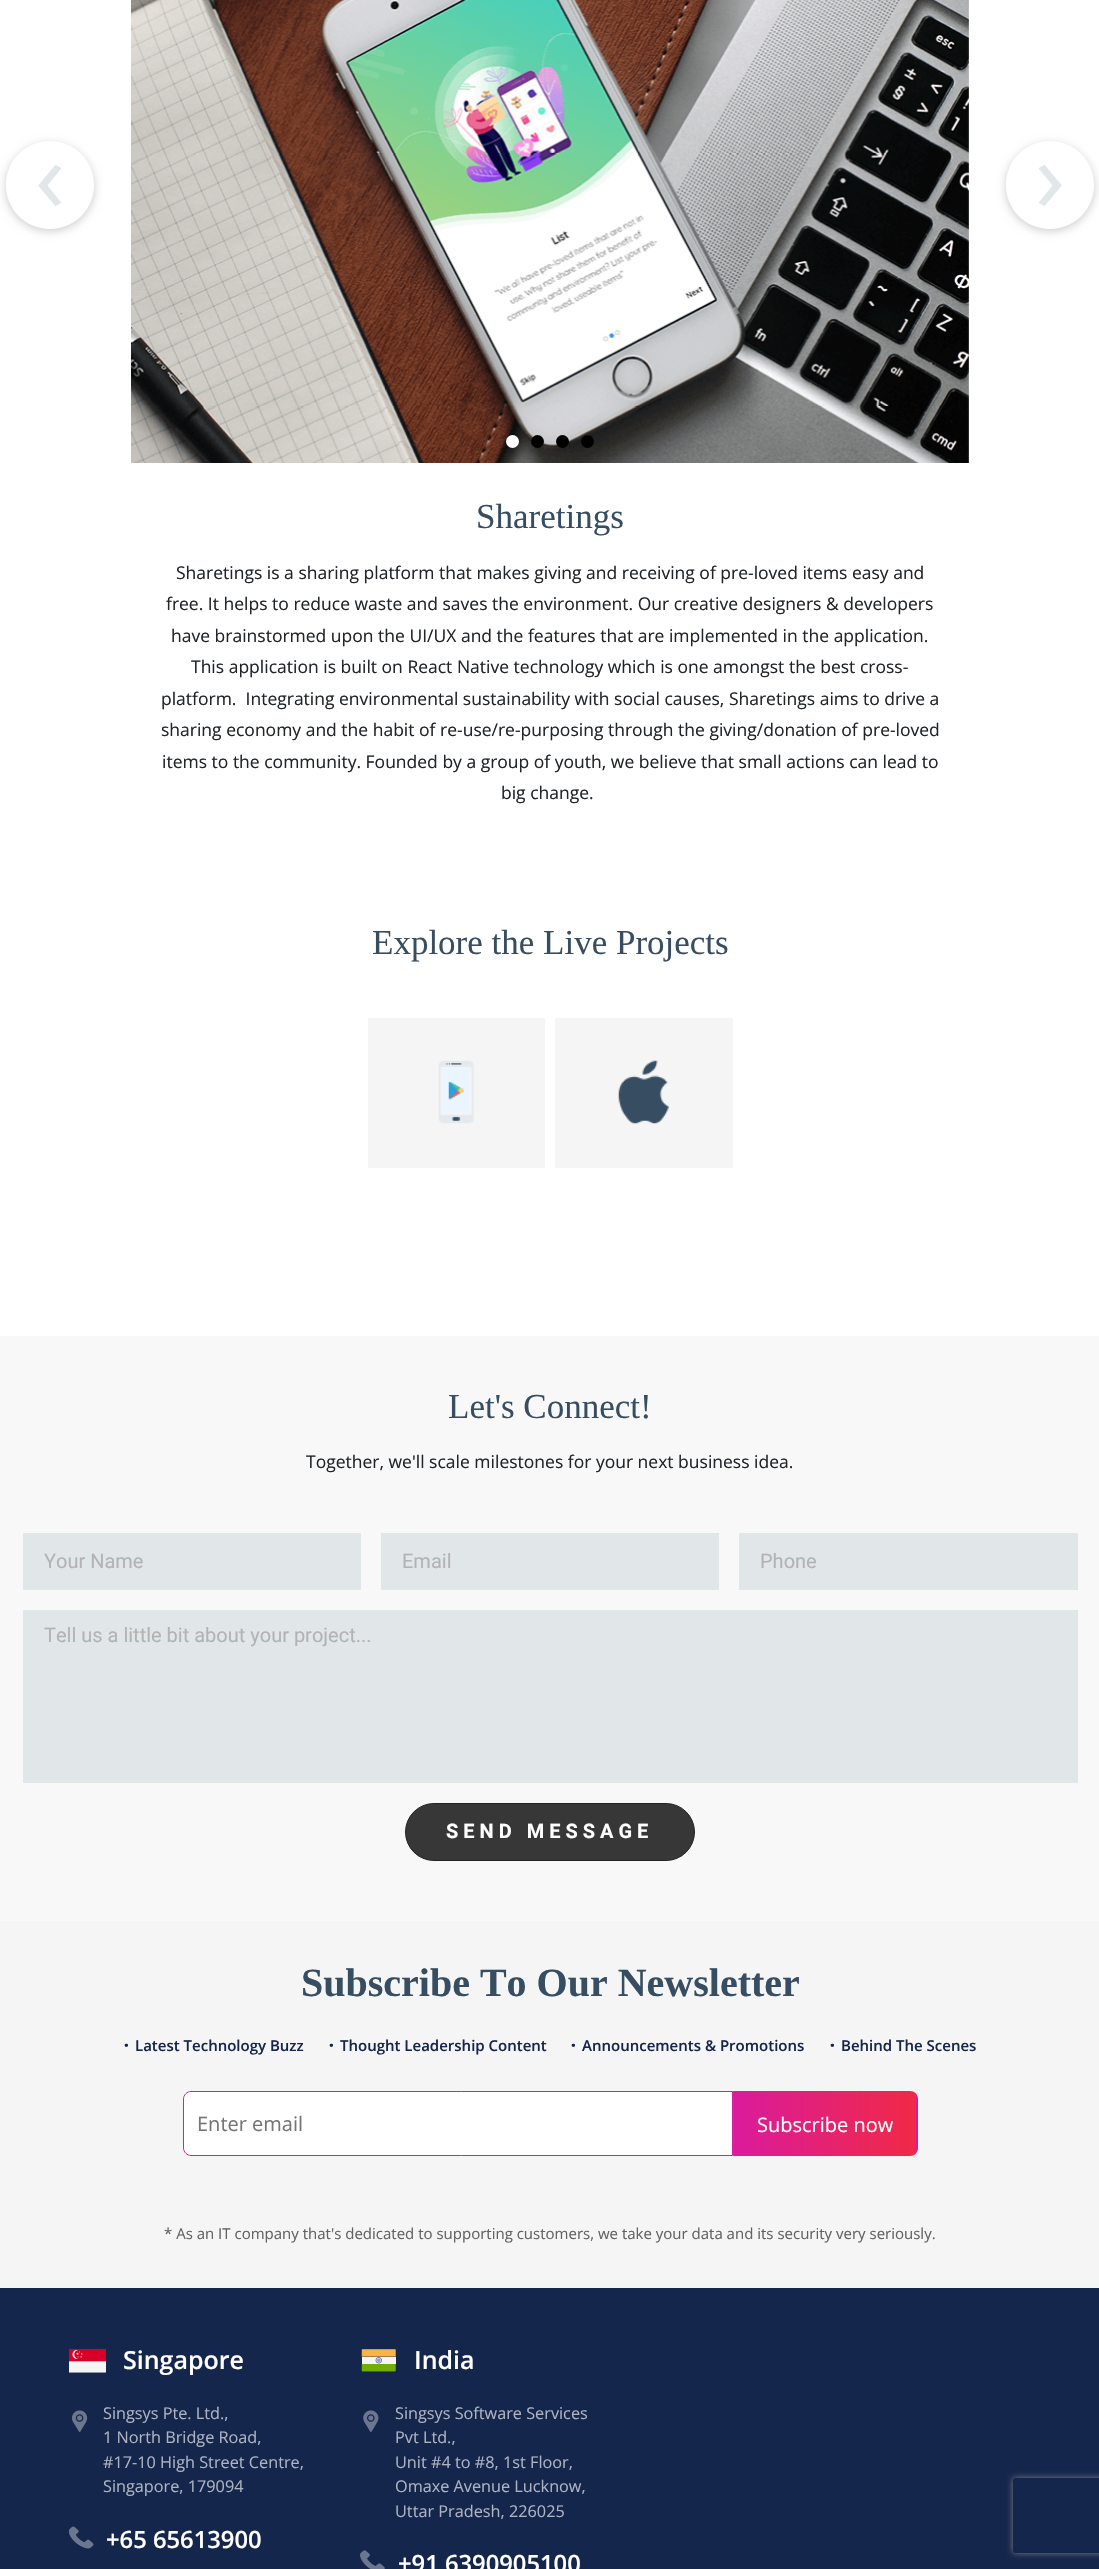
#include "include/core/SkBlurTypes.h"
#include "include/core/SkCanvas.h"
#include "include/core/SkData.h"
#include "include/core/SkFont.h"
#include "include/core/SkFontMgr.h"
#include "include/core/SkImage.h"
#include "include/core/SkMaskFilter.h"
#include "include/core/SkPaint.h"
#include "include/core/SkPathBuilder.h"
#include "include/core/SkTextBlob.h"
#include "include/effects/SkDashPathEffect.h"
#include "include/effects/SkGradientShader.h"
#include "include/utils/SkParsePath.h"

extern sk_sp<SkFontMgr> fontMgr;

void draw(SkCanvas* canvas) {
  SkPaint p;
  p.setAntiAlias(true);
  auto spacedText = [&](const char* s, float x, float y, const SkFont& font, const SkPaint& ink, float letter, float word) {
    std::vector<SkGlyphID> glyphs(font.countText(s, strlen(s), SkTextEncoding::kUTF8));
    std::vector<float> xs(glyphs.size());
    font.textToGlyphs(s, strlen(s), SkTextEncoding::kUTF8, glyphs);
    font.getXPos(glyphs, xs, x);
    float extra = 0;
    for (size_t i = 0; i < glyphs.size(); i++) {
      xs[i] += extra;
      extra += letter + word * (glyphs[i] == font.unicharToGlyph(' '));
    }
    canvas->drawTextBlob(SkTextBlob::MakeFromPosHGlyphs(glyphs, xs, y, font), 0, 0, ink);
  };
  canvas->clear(SK_ColorWHITE);
  canvas->drawImageRect(SkImages::DeferredFromEncodedData(SkData::MakeFromFileName("images/1.png")), SkRect::MakeLTRB(131, 0, 969, 463), SkSamplingOptions());
  canvas->save();
  canvas->clipPath(SkPathBuilder(SkPathFillType::kEvenOdd).moveTo(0, 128).lineTo(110, 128).lineTo(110, 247).lineTo(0, 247).close().moveTo(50, 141).cubicTo(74.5f, 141, 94, 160.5f, 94, 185).cubicTo(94, 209.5f, 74.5f, 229, 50, 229).cubicTo(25.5f, 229, 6, 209.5f, 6, 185).cubicTo(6, 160.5f, 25.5f, 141, 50, 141).close().detach(), true);
  p.setColor(SkColorSetARGB(51, 0, 0, 0));
  p.setMaskFilter(SkMaskFilter::MakeBlur(kNormal_SkBlurStyle, 5));
  canvas->drawRoundRect(SkRect::MakeLTRB(6, 144, 94, 231), 43.5f, 43.5f, p);
  p.setMaskFilter(nullptr);
  canvas->restore();
  canvas->save();
  canvas->clipPath(SkPathBuilder(SkPathFillType::kEvenOdd).moveTo(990, 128).lineTo(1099, 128).lineTo(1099, 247).lineTo(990, 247).close().moveTo(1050, 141).cubicTo(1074.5f, 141, 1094, 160.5f, 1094, 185).cubicTo(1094, 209.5f, 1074.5f, 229, 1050, 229).cubicTo(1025.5f, 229, 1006, 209.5f, 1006, 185).cubicTo(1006, 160.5f, 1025.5f, 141, 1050, 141).close().detach(), true);
  p.setMaskFilter(SkMaskFilter::MakeBlur(kNormal_SkBlurStyle, 5));
  canvas->drawRoundRect(SkRect::MakeLTRB(1006, 144, 1094, 231), 43.5f, 43.5f, p);
  p.setMaskFilter(nullptr);
  canvas->restore();
  p.setColor(SK_ColorWHITE);
  canvas->drawCircle(512.5f, 441.5f, 6.5f, p);
  p.setColor(SK_ColorBLACK);
  canvas->drawCircle(537.5f, 441.5f, 6.5f, p);
  canvas->drawCircle(562.5f, 441.5f, 6.5f, p);
  canvas->drawCircle(587.5f, 441.5f, 6.5f, p);
  p.setColor(SkColorSetRGB(245, 245, 245));
  canvas->drawRect(SkRect::MakeLTRB(368, 1018, 545, 1168), p);
  canvas->drawImageRect(SkImages::DeferredFromEncodedData(SkData::MakeFromFileName("images/2.png")), SkRect::MakeLTRB(438, 1060, 474, 1124), SkSamplingOptions());
  canvas->drawRect(SkRect::MakeLTRB(555, 1018, 733, 1168), p);
  canvas->drawImageRect(SkImages::DeferredFromEncodedData(SkData::MakeFromFileName("images/3.png")), SkRect::MakeLTRB(618, 1060, 669, 1124), SkSamplingOptions());
  p.setColor(SkColorSetRGB(248, 248, 248));
  canvas->drawRect(SkRect::MakeLTRB(0, 1336, 1099, 1921), p);
  p.setColor(SkColorSetRGB(225, 230, 233));
  canvas->drawRect(SkRect::MakeLTRB(23, 1533, 361, 1590), p);
  canvas->drawRect(SkRect::MakeLTRB(381, 1533, 719, 1590), p);
  canvas->drawRect(SkRect::MakeLTRB(739, 1533, 1078, 1590), p);
  canvas->drawRect(SkRect::MakeLTRB(23, 1610, 1078, 1783), p);
  p.setColor(SkColorSetRGB(55, 55, 55));
  canvas->drawRoundRect(SkRect::MakeLTRB(405.5f, 1803.5f, 694.5f, 1860.5f), 28.5f, 28.5f, p);
  p.setStyle(SkPaint::kStroke_Style);
  p.setStrokeWidth(1);
  p.setColor(SkColorSetRGB(34, 34, 34));
  canvas->drawRoundRect(SkRect::MakeLTRB(405.5f, 1803.5f, 694.5f, 1860.5f), 28.5f, 28.5f, p);
  p.setStyle(SkPaint::kFill_Style);
  p.setColor(SkColorSetRGB(245, 245, 245));
  canvas->drawRect(SkRect::MakeLTRB(0, 1921, 1099, 2288), p);
  p.setColor(SK_ColorWHITE);
  canvas->drawPath(SkPathBuilder().moveTo(191, 2091.5f).lineTo(732.5f, 2091.5f).lineTo(732.5f, 2155.5f).lineTo(191, 2155.5f).cubicTo(187, 2155.5f, 183.5f, 2152, 183.5f, 2148).lineTo(183.5f, 2099).cubicTo(183.5f, 2095, 187, 2091.5f, 191, 2091.5f).close().detach(), p);
  p.setStyle(SkPaint::kStroke_Style);
  p.setColor(SkColorSetRGB(218, 27, 156));
  canvas->drawPath(SkPathBuilder().moveTo(191, 2091.5f).lineTo(732.5f, 2091.5f).lineTo(732.5f, 2155.5f).lineTo(191, 2155.5f).cubicTo(187, 2155.5f, 183.5f, 2152, 183.5f, 2148).lineTo(183.5f, 2099).cubicTo(183.5f, 2095, 187, 2091.5f, 191, 2091.5f).close().detach(), p);
  p.setStyle(SkPaint::kFill_Style);
  {
    const SkColor colors[] = {SkColorSetRGB(218, 27, 156), SkColorSetRGB(240, 41, 70)};
    const float stops[] = {0, 1};
    const SkPoint ends[] = {{551, 2124}, {734, 2124}};
    p.setShader(SkGradientShader::MakeLinear(ends, colors, stops, 2, SkTileMode::kClamp));
    p.setAlpha(255);
  }
  canvas->drawRect(SkRect::MakeLTRB(733, 2091, 734, 2156), p);
  canvas->save();
  canvas->clipPath(SkPathBuilder().moveTo(733, 2091).lineTo(910, 2091).cubicTo(914.5f, 2091, 918, 2094.5f, 918, 2099).lineTo(918, 2148).cubicTo(918, 2152.5f, 914.5f, 2156, 910, 2156).lineTo(733, 2156).close().detach(), true);
  {
    const SkColor colors[] = {SkColorSetRGB(218, 27, 156), SkColorSetRGB(240, 41, 70)};
    const float stops[] = {0, 1};
    const SkPoint ends[] = {{734, 2124}, {916, 2124}};
    p.setShader(SkGradientShader::MakeLinear(ends, colors, stops, 2, SkTileMode::kClamp));
    p.setAlpha(255);
  }
  canvas->drawRect(SkRect::MakeLTRB(734, 2091, 916, 2156), p);
  {
    const SkColor colors[] = {SkColorSetRGB(218, 27, 156), SkColorSetRGB(240, 41, 70)};
    const float stops[] = {0, 1};
    const SkPoint ends[] = {{916, 2124}, {1099, 2124}};
    p.setShader(SkGradientShader::MakeLinear(ends, colors, stops, 2, SkTileMode::kClamp));
    p.setAlpha(255);
  }
  canvas->drawRect(SkRect::MakeLTRB(916, 2091, 918, 2156), p);
  canvas->restore();
  p.setShader(nullptr);
  p.setColor(SkColorSetRGB(21, 38, 77));
  canvas->drawRect(SkRect::MakeLTRB(0, 2288, 1099, 2569), p);
  canvas->drawImageRect(SkImages::DeferredFromEncodedData(SkData::MakeFromFileName("images/4.png")), SkRect::MakeLTRB(69, 2349, 106, 2373), SkSamplingOptions());
  canvas->drawImageRect(SkImages::DeferredFromEncodedData(SkData::MakeFromFileName("images/5.png")), SkRect::MakeLTRB(72, 2410, 88, 2432), SkSamplingOptions());
  canvas->drawImageRect(SkImages::DeferredFromEncodedData(SkData::MakeFromFileName("images/6.png")), SkRect::MakeLTRB(69, 2526, 94, 2549), SkSamplingOptions());
  canvas->drawImageRect(SkImages::DeferredFromEncodedData(SkData::MakeFromFileName("images/7.png")), SkRect::MakeLTRB(361, 2349, 396, 2372), SkSamplingOptions());
  canvas->drawImageRect(SkImages::DeferredFromEncodedData(SkData::MakeFromFileName("images/8.png")), SkRect::MakeLTRB(363, 2410, 379, 2432), SkSamplingOptions());
  canvas->drawImageRect(SkImages::DeferredFromEncodedData(SkData::MakeFromFileName("images/9.png")), SkRect::MakeLTRB(360, 2550, 385, 2569), SkSamplingOptions());
  canvas->save();
  canvas->clipPath(SkPathBuilder(SkPathFillType::kEvenOdd).moveTo(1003, 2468).lineTo(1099, 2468).lineTo(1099, 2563).lineTo(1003, 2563).close().moveTo(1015.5f, 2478).lineTo(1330.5f, 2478).cubicTo(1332, 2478, 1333, 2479, 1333, 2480.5f).lineTo(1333, 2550.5f).cubicTo(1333, 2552, 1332, 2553, 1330.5f, 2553).lineTo(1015.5f, 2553).cubicTo(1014, 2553, 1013, 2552, 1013, 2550.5f).lineTo(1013, 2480.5f).cubicTo(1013, 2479, 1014, 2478, 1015.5f, 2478).close().detach(), true);
  p.setColor(SkColorSetRGB(128, 128, 128));
  p.setMaskFilter(SkMaskFilter::MakeBlur(kNormal_SkBlurStyle, 3));
  canvas->drawRoundRect(SkRect::MakeLTRB(1013, 2478, 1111, 2553), 2.5f, 2.5f, p);
  p.setMaskFilter(nullptr);
  canvas->restore();
  SkFont font1(fontMgr->matchFamilyStyle("Open Sans", SkFontStyle::Normal()), 100);
  font1.setSubpixel(true);
  p.setColor(SkColorSetRGB(225, 230, 233));
  canvas->drawString("‹", 35, 212, font1, p);
  canvas->drawString("›", 1035, 212, font1, p);
  SkFont font2(fontMgr->matchFamilyStyle("Liberation Serif", SkFontStyle::Normal()), 35);
  font2.setSubpixel(true);
  p.setColor(SkColorSetRGB(55, 78, 98));
  canvas->drawString("Sharetings", 476, 528, font2, p);
  SkFont font3(fontMgr->matchFamilyStyle("Open Sans", SkFontStyle::Normal()), 17.5f);
  font3.setSubpixel(true);
  p.setColor(SkColorSetRGB(33, 37, 41));
  canvas->drawString("Sharetings is a sharing platform that makes giving and receiving of pre-loved items easy and", 176, 579, font3, p);
  canvas->drawString("free. It helps to reduce waste and saves the environment. Our creative designers & developers", 166, 610, font3, p);
  canvas->drawString("have brainstormed upon the UI/UX and the features that are implemented in the application.", 171, 642, font3, p);
  canvas->drawString("This application is built on React Native technology which is one amongst the best cross-", 191, 673, font3, p);
  canvas->drawString("platform.  Integrating environmental sustainability with social causes, Sharetings aims to drive a", 161, 705, font3, p);
  canvas->drawString("sharing economy and the habit of re-use/re-purposing through the giving/donation of pre-loved", 161, 736, font3, p);
  canvas->drawString("items to the community. Founded by a group of youth, we believe that small actions can lead to", 162, 768, font3, p);
  canvas->drawString("big change.", 501, 799, font3, p);
  p.setColor(SkColorSetRGB(55, 78, 98));
  canvas->drawString("Explore the Live Projects", 372, 954, font2, p);
  canvas->drawString("Let's Connect!", 448, 1418, font2, p);
  p.setColor(SkColorSetRGB(33, 37, 41));
  canvas->drawString("Together, we'll scale milestones for your next business idea.", 306, 1468, font3, p);
  SkFont font4(fontMgr->matchFamilyStyle("Roboto", SkFontStyle::Normal()), 20);
  font4.setSubpixel(true);
  p.setColor(SkColorSetRGB(179, 179, 179));
  canvas->drawString("Your Name", 44, 1568, font4, p);
  canvas->drawString("Email", 402, 1568, font4, p);
  canvas->drawString("Phone", 760, 1568, font4, p);
  canvas->drawString("Tell us a little bit about your project...", 44, 1642, font4, p);
  SkFont font5(fontMgr->matchFamilyStyle("Roboto", SkFontStyle::Bold()), 20);
  font5.setSubpixel(true);
  p.setColor(SK_ColorWHITE);
  spacedText("SEND MESSAGE", 446, 1838, font5, p, 5, 0);
  SkFont font6(fontMgr->matchFamilyStyle("Liberation Serif", SkFontStyle::Bold()), 40);
  font6.setSubpixel(true);
  p.setColor(SkColorSetRGB(55, 78, 98));
  canvas->drawString("Subscribe To Our Newsletter", 301, 1996, font6, p);
  SkFont font7(fontMgr->matchFamilyStyle("Open Sans", SkFontStyle(800, SkFontStyle::kNormal_Width, SkFontStyle::kUpright_Slant)), 16.25f);
  font7.setSubpixel(true);
  p.setColor(SkColorSetRGB(21, 38, 77));
  canvas->drawString("·", 124, 2051, font7, p);
  SkFont font8(fontMgr->matchFamilyStyle("Open Sans", SkFontStyle(600, SkFontStyle::kNormal_Width, SkFontStyle::kUpright_Slant)), 15);
  font8.setSubpixel(true);
  canvas->drawString("Latest Technology Buzz", 135, 2051, font8, p);
  canvas->drawString("·", 329, 2051, font7, p);
  canvas->drawString("Thought Leadership Content", 340, 2051, font8, p);
  canvas->drawString("·", 571, 2051, font7, p);
  canvas->drawString("Announcements & Promotions", 582, 2051, font8, p);
  canvas->drawString("·", 830, 2051, font7, p);
  canvas->drawString("Behind The Scenes", 841, 2051, font8, p);
  SkFont font9(fontMgr->matchFamilyStyle("Open Sans", SkFontStyle::Normal()), 20);
  font9.setSubpixel(true);
  p.setColor(SkColorSetRGB(117, 117, 117));
  canvas->drawString("Enter email", 197, 2131, font9, p);
  p.setColor(SK_ColorWHITE);
  canvas->drawString("Subscribe now", 757, 2132, font9, p);
  SkFont font10(fontMgr->matchFamilyStyle("Open Sans", SkFontStyle::Normal()), 15);
  font10.setSubpixel(true);
  p.setColor(SkColorSetRGB(98, 98, 98));
  canvas->drawString("* As an IT company that's dedicated to supporting customers, we take your data and its security very seriously.", 164, 2239, font10, p);
  SkFont font11(fontMgr->matchFamilyStyle("Open Sans", SkFontStyle(600, SkFontStyle::kNormal_Width, SkFontStyle::kUpright_Slant)), 25);
  font11.setSubpixel(true);
  p.setColor(SK_ColorWHITE);
  canvas->drawString("Singapore", 123, 2369, font11, p);
  SkFont font12(fontMgr->matchFamilyStyle("Open Sans", SkFontStyle::Normal()), 16.25f);
  font12.setSubpixel(true);
  p.setColor(SkColorSetRGB(173, 179, 193));
  canvas->drawString("Singsys Pte. Ltd.,", 103, 2419, font12, p);
  canvas->drawString("1 North Bridge Road,", 103, 2443, font12, p);
  canvas->drawString("#17-10 High Street Centre,", 103, 2468, font12, p);
  canvas->drawString("Singapore, 179094", 103, 2492, font12, p);
  SkFont font13(fontMgr->matchFamilyStyle("Open Sans", SkFontStyle(600, SkFontStyle::kNormal_Width, SkFontStyle::kUpright_Slant)), 23.75f);
  font13.setSubpixel(true);
  p.setColor(SK_ColorWHITE);
  canvas->drawString("+65 65613900", 106, 2548, font13, p);
  canvas->drawString("India", 414, 2369, font11, p);
  p.setColor(SkColorSetRGB(173, 179, 193));
  canvas->drawString("Singsys Software Services", 395, 2419, font12, p);
  canvas->drawString("Pvt Ltd.,", 395, 2443, font12, p);
  canvas->drawString("Unit #4 to #8, 1st Floor,", 395, 2468, font12, p);
  canvas->drawString("Omaxe Avenue Lucknow,", 395, 2492, font12, p);
  canvas->drawString("Uttar Pradesh, 226025", 395, 2517, font12, p);
  p.setColor(SK_ColorWHITE);
  canvas->drawString("+91 6390905100", 398, 2572, font13, p);
}
